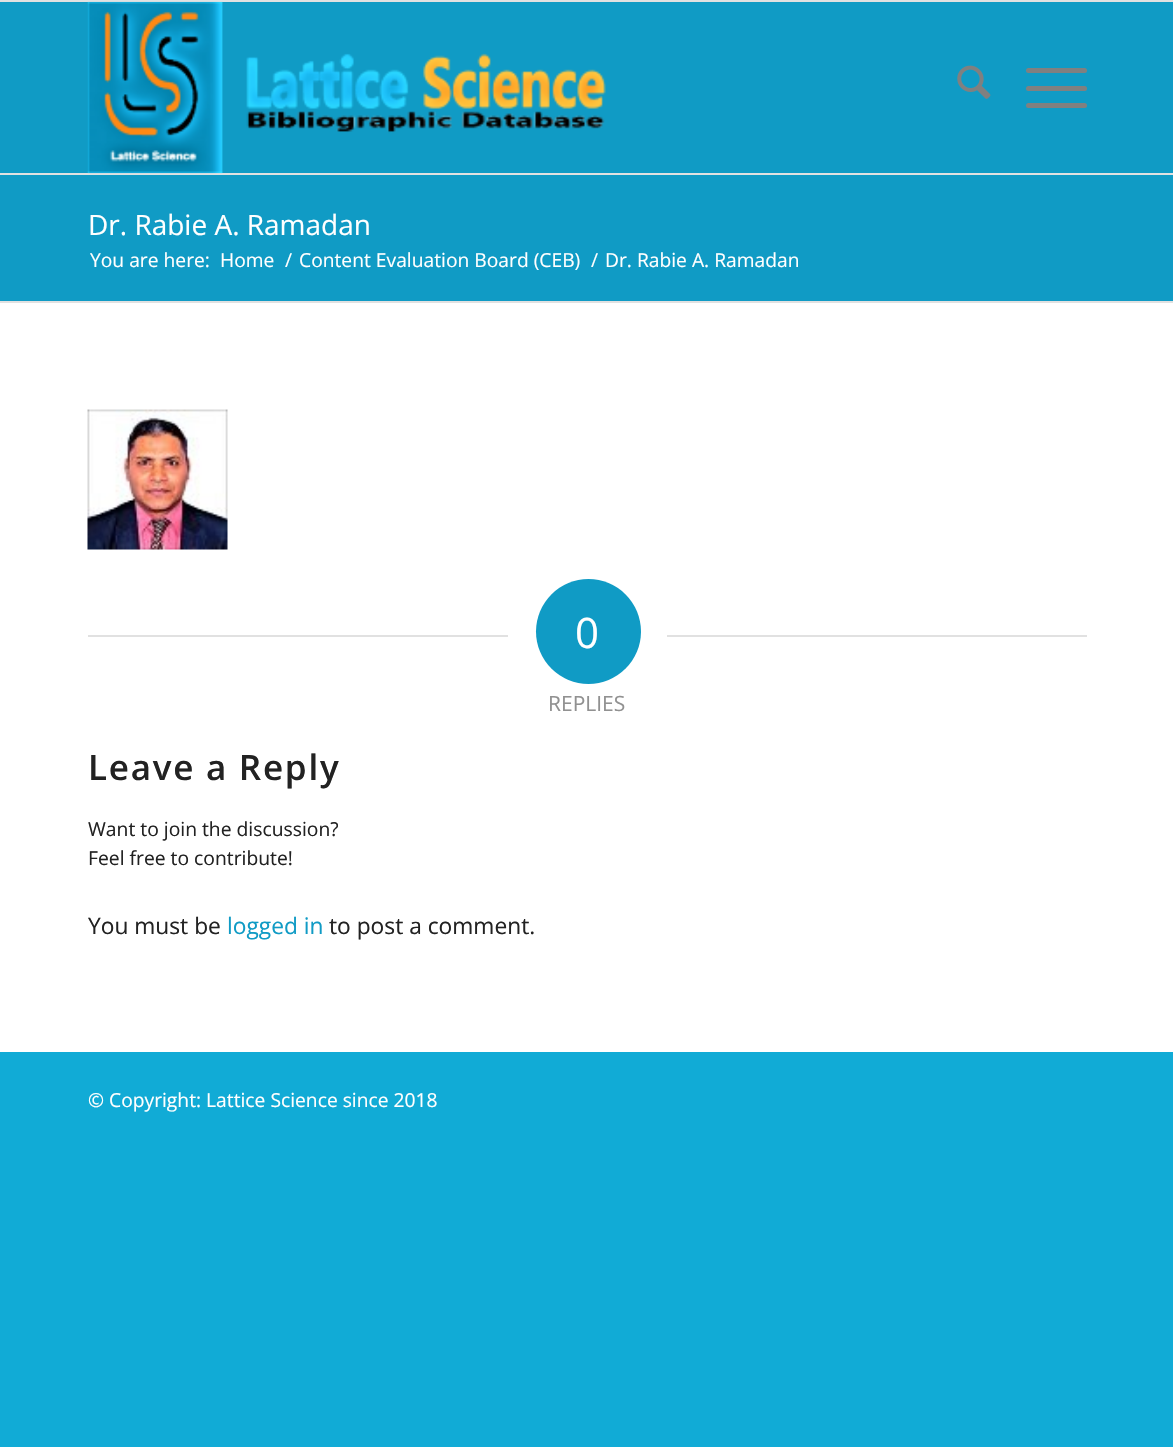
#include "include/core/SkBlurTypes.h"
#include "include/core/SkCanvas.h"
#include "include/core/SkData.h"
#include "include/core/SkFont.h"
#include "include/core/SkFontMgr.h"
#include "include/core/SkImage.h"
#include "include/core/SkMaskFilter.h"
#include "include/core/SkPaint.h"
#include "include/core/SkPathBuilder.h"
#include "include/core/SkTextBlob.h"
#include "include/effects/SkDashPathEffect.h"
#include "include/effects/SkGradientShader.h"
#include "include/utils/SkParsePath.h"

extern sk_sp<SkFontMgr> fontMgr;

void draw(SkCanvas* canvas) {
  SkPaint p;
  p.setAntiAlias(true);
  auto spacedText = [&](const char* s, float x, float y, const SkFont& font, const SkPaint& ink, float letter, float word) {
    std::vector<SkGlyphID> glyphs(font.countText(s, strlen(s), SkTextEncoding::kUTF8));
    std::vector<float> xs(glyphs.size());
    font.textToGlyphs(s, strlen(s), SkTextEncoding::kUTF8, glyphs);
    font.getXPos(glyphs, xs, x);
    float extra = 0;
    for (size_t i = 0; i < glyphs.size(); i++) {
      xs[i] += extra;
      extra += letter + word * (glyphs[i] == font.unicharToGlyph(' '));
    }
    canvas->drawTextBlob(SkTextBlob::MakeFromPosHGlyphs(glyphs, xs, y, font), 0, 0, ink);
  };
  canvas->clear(SkColorSetRGB(17, 171, 214));
  p.setColor(SkColorSetRGB(225, 225, 225));
  canvas->drawRect(SkRect::MakeLTRB(0, 0, 1173, 2), p);
  canvas->drawRect(SkRect::MakeLTRB(0, 173, 1173, 175), p);
  p.setColor(SkColorSetRGB(16, 155, 197));
  canvas->drawRect(SkRect::MakeLTRB(0, 2, 1173, 173), p);
  canvas->drawImageRect(SkImages::DeferredFromEncodedData(SkData::MakeFromFileName("images/1.png")), SkRect::MakeLTRB(87, 1, 606, 174), SkSamplingOptions());
  canvas->drawImageRect(SkImages::DeferredFromEncodedData(SkData::MakeFromFileName("images/2.png")), SkRect::MakeLTRB(957, 65, 991, 99), SkSamplingOptions());
  p.setColor(SkColorSetRGB(128, 128, 128));
  canvas->drawRoundRect(SkRect::MakeLTRB(1026, 86, 1087, 91), 2.5f, 2.5f, p);
  canvas->drawRoundRect(SkRect::MakeLTRB(1026, 68, 1087, 73), 2.5f, 2.5f, p);
  canvas->drawRoundRect(SkRect::MakeLTRB(1026, 103, 1087, 108), 2.5f, 2.5f, p);
  p.setColor(SkColorSetRGB(16, 155, 197));
  canvas->drawRect(SkRect::MakeLTRB(0, 175, 1173, 301), p);
  p.setColor(SK_ColorWHITE);
  canvas->drawRect(SkRect::MakeLTRB(0, 303, 1173, 1052), p);
  p.setColor(SkColorSetRGB(225, 225, 225));
  canvas->drawRect(SkRect::MakeLTRB(0, 301, 1173, 303), p);
  canvas->drawImageRect(SkImages::DeferredFromEncodedData(SkData::MakeFromFileName("images/3.png")), SkRect::MakeLTRB(87, 409, 228, 550), SkSamplingOptions());
  canvas->drawRect(SkRect::MakeLTRB(88, 635, 508, 637), p);
  p.setColor(SkColorSetRGB(16, 155, 197));
  canvas->drawCircle(588.5f, 631.5f, 52.5f, p);
  p.setColor(SkColorSetRGB(225, 225, 225));
  canvas->drawRect(SkRect::MakeLTRB(667, 635, 1087, 637), p);
  SkFont font1(fontMgr->matchFamilyStyle("Open Sans", SkFontStyle::Normal()), 28);
  font1.setSubpixel(true);
  p.setColor(SK_ColorWHITE);
  canvas->drawString("Dr. Rabie A. Ramadan", 88, 235, font1, p);
  SkFont font2(fontMgr->matchFamilyStyle("Open Sans", SkFontStyle::Normal()), 19.25f);
  font2.setSubpixel(true);
  canvas->drawString("You are here:", 90, 267, font2, p);
  canvas->drawString("Home", 220, 267, font2, p);
  canvas->drawString("/", 285, 267, font2, p);
  canvas->drawString("Content Evaluation Board (CEB)", 299, 267, font2, p);
  canvas->drawString("/", 591, 267, font2, p);
  canvas->drawString("Dr. Rabie A. Ramadan", 605, 267, font2, p);
  SkFont font3(fontMgr->matchFamilyStyle("Open Sans", SkFontStyle::Normal()), 42);
  font3.setSubpixel(true);
  canvas->drawString("0", 575, 648, font3, p);
  SkFont font4(fontMgr->matchFamilyStyle("Open Sans", SkFontStyle::Normal()), 21);
  font4.setSubpixel(true);
  p.setColor(SkColorSetRGB(145, 145, 145));
  canvas->drawString("REPLIES", 548, 711, font4, p);
  SkFont font5(fontMgr->matchFamilyStyle("Open Sans", SkFontStyle(600, SkFontStyle::kNormal_Width, SkFontStyle::kUpright_Slant)), 35);
  font5.setSubpixel(true);
  p.setColor(SkColorSetRGB(34, 34, 34));
  spacedText("Leave a Reply", 88, 780, font5, p, 1.75f, 0);
  SkFont font6(fontMgr->matchFamilyStyle("Open Sans", SkFontStyle::Normal()), 19.3f);
  font6.setSubpixel(true);
  canvas->drawString("Want to join the discussion?", 88, 836, font6, p);
  canvas->drawString("Feel free to contribute!", 88, 865, font6, p);
  SkFont font7(fontMgr->matchFamilyStyle("Open Sans", SkFontStyle::Normal()), 22.75f);
  font7.setSubpixel(true);
  canvas->drawString("You must be", 88, 934, font7, p);
  p.setColor(SkColorSetRGB(16, 155, 197));
  canvas->drawString("logged in", 227, 934, font7, p);
  p.setColor(SkColorSetRGB(34, 34, 34));
  canvas->drawString("to post a comment.", 329, 934, font7, p);
  p.setColor(SK_ColorWHITE);
  canvas->drawString("© Copyright: Lattice Science since 2018", 88, 1107, font2, p);
}
